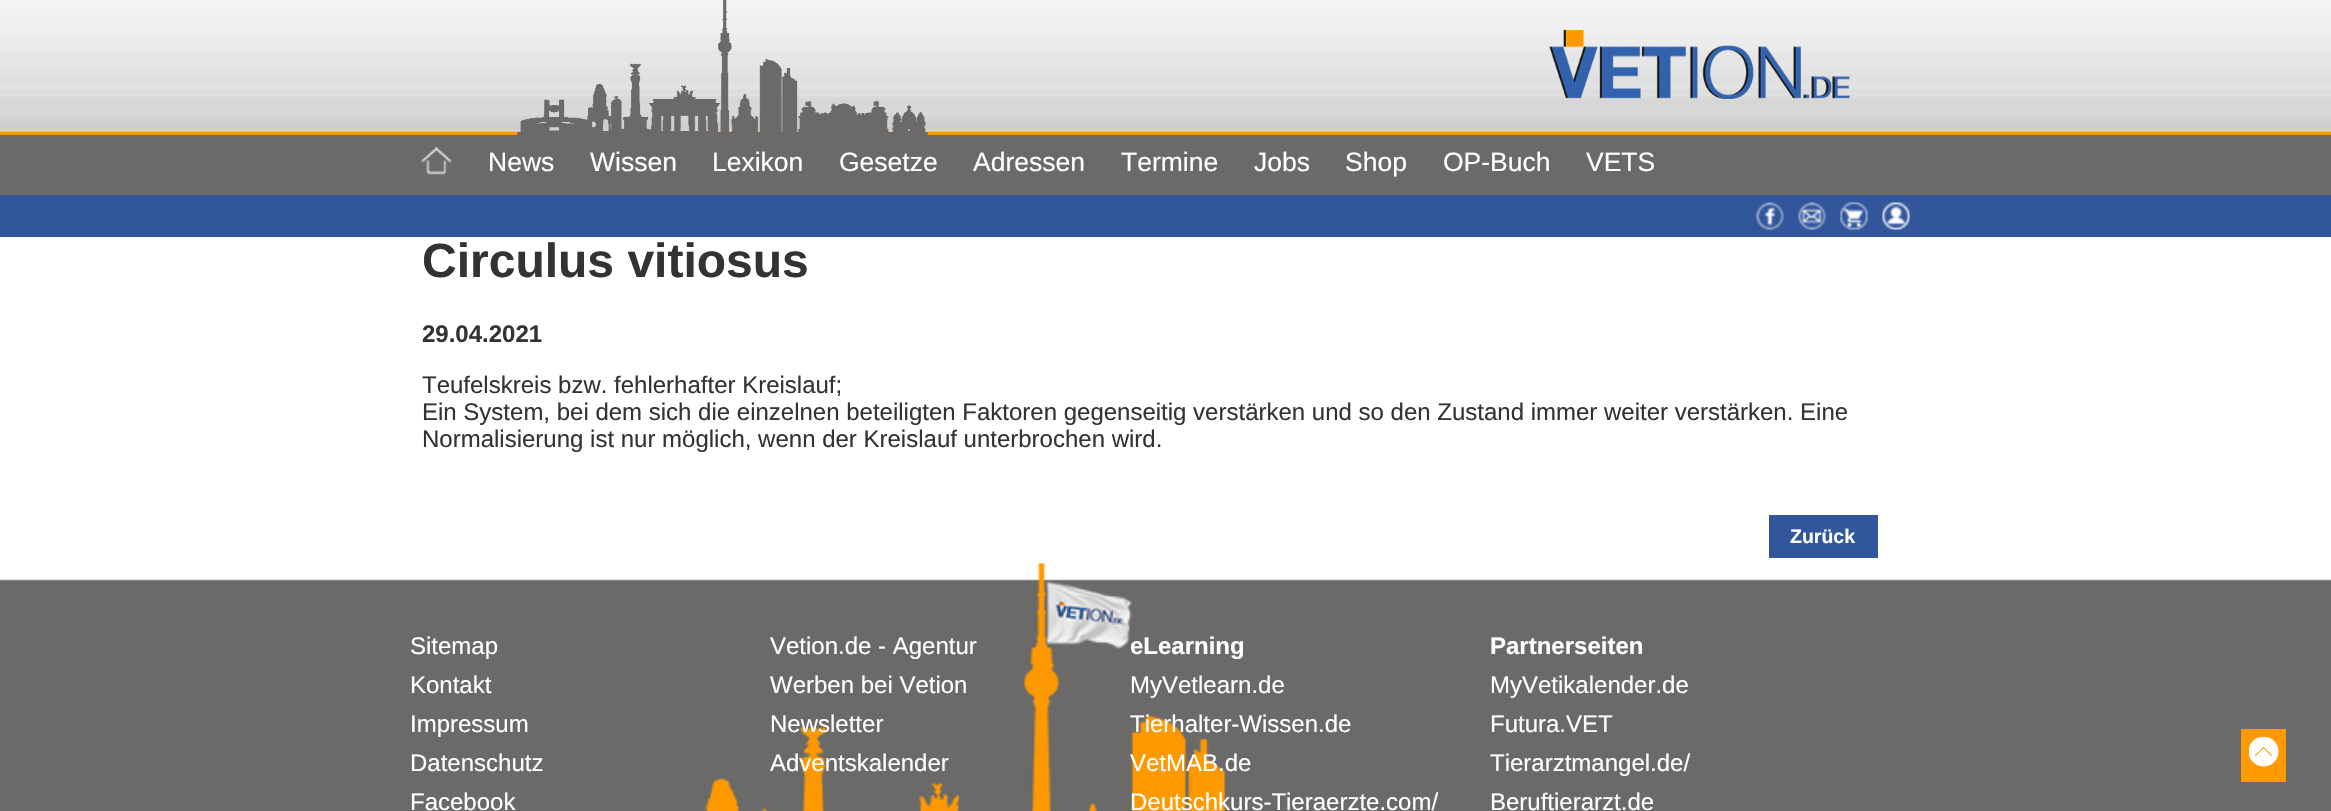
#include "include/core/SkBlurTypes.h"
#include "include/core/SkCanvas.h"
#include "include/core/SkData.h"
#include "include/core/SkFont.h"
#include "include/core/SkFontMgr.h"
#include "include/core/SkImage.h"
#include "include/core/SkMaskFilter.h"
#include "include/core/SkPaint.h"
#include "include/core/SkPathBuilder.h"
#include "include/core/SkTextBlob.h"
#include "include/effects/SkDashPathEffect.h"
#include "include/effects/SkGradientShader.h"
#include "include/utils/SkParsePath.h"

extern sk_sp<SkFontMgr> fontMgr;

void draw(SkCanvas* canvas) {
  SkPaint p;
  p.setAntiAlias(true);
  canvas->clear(SK_ColorWHITE);
  canvas->drawImageRect(SkImages::DeferredFromEncodedData(SkData::MakeFromFileName("images/1.png")), SkRect::MakeLTRB(0, 0, 2331, 135), SkSamplingOptions());
  canvas->drawImageRect(SkImages::DeferredFromEncodedData(SkData::MakeFromFileName("images/2.png")), SkRect::MakeLTRB(517, 0, 928, 135), SkSamplingOptions());
  canvas->drawImageRect(SkImages::DeferredFromEncodedData(SkData::MakeFromFileName("images/3.png")), SkRect::MakeLTRB(1549, 30, 1850, 99), SkSamplingOptions());
  p.setColor(SkColorSetRGB(107, 106, 105));
  canvas->drawRect(SkRect::MakeLTRB(0, 135, 2331, 195), p);
  canvas->drawImageRect(SkImages::DeferredFromEncodedData(SkData::MakeFromFileName("images/4.png")), SkRect::MakeLTRB(421, 147, 452, 175), SkSamplingOptions());
  p.setColor(SkColorSetRGB(49, 86, 156));
  canvas->drawRect(SkRect::MakeLTRB(0, 195, 2331, 237), p);
  canvas->drawImageRect(SkImages::DeferredFromEncodedData(SkData::MakeFromFileName("images/5.png")), SkRect::MakeLTRB(1756, 202, 1784, 230), SkSamplingOptions());
  canvas->drawImageRect(SkImages::DeferredFromEncodedData(SkData::MakeFromFileName("images/6.png")), SkRect::MakeLTRB(1798, 202, 1826, 230), SkSamplingOptions());
  canvas->drawImageRect(SkImages::DeferredFromEncodedData(SkData::MakeFromFileName("images/7.png")), SkRect::MakeLTRB(1840, 202, 1868, 230), SkSamplingOptions());
  canvas->drawImageRect(SkImages::DeferredFromEncodedData(SkData::MakeFromFileName("images/8.png")), SkRect::MakeLTRB(1882, 202, 1910, 230), SkSamplingOptions());
  canvas->drawRect(SkRect::MakeLTRB(1769, 515, 1878, 558), p);
  canvas->drawImageRect(SkImages::DeferredFromEncodedData(SkData::MakeFromFileName("images/9.png")), SkRect::MakeLTRB(0, 563, 2331, 811), SkSamplingOptions());
  p.setColor(SkColorSetRGB(255, 153, 0));
  canvas->drawRect(SkRect::MakeLTRB(2241, 729, 2286, 782), p);
  canvas->drawImageRect(SkImages::DeferredFromEncodedData(SkData::MakeFromFileName("images/10.png")), SkRect::MakeLTRB(2249, 737, 2279, 767), SkSamplingOptions());
  SkFont font1(fontMgr->matchFamilyStyle("Liberation Sans", SkFontStyle::Normal()), 26.5f);
  font1.setSubpixel(true);
  p.setColor(SK_ColorWHITE);
  canvas->drawString("News", 488, 171, font1, p);
  canvas->drawString("Wissen", 590, 171, font1, p);
  canvas->drawString("Lexikon", 712, 171, font1, p);
  canvas->drawString("Gesetze", 839, 171, font1, p);
  canvas->drawString("Adressen", 973, 171, font1, p);
  canvas->drawString("Termine", 1121, 171, font1, p);
  canvas->drawString("Jobs", 1254, 171, font1, p);
  canvas->drawString("Shop", 1345, 171, font1, p);
  canvas->drawString("OP-Buch", 1443, 171, font1, p);
  canvas->drawString("VETS", 1586, 171, font1, p);
  SkFont font2(fontMgr->matchFamilyStyle("Liberation Sans", SkFontStyle::Bold()), 48);
  font2.setSubpixel(true);
  p.setColor(SkColorSetRGB(51, 51, 51));
  canvas->drawString("Circulus vitiosus", 422, 277, font2, p);
  SkFont font3(fontMgr->matchFamilyStyle("Liberation Sans", SkFontStyle::Bold()), 24);
  font3.setSubpixel(true);
  canvas->drawString("29.04.2021", 422, 342, font3, p);
  SkFont font4(fontMgr->matchFamilyStyle("Liberation Sans", SkFontStyle::Normal()), 24);
  font4.setSubpixel(true);
  canvas->drawString("Teufelskreis bzw. fehlerhafter Kreislauf;", 422, 393, font4, p);
  canvas->drawString("Ein System, bei dem sich die einzelnen beteiligten Faktoren gegenseitig verstärken und so den Zustand immer weiter verstärken. Eine", 422, 420, font4, p);
  canvas->drawString("Normalisierung ist nur möglich, wenn der Kreislauf unterbrochen wird.", 422, 447, font4, p);
  SkFont font5(fontMgr->matchFamilyStyle("Liberation Sans", SkFontStyle::Bold()), 19.5f);
  font5.setSubpixel(true);
  p.setColor(SK_ColorWHITE);
  canvas->drawString("Zurück", 1790, 543, font5, p);
  canvas->drawString("Sitemap", 410, 654, font4, p);
  canvas->drawString("Kontakt", 410, 693, font4, p);
  canvas->drawString("Impressum", 410, 732, font4, p);
  canvas->drawString("Datenschutz", 410, 771, font4, p);
  canvas->drawString("Facebook", 410, 810, font4, p);
  canvas->drawString("Vetion.de - Agentur", 770, 654, font4, p);
  canvas->drawString("Werben bei Vetion", 770, 693, font4, p);
  canvas->drawString("Newsletter", 770, 732, font4, p);
  canvas->drawString("Adventskalender", 770, 771, font4, p);
  canvas->drawString("eLearning", 1130, 654, font3, p);
  canvas->drawString("MyVetlearn.de", 1130, 693, font4, p);
  canvas->drawString("Tierhalter-Wissen.de", 1130, 732, font4, p);
  canvas->drawString("VetMAB.de", 1130, 771, font4, p);
  canvas->drawString("Deutschkurs-Tieraerzte.com/", 1130, 810, font4, p);
  canvas->drawString("Partnerseiten", 1490, 654, font3, p);
  canvas->drawString("MyVetikalender.de", 1490, 693, font4, p);
  canvas->drawString("Futura.VET", 1490, 732, font4, p);
  canvas->drawString("Tierarztmangel.de/", 1490, 771, font4, p);
  canvas->drawString("Beruftierarzt.de", 1490, 810, font4, p);
}
